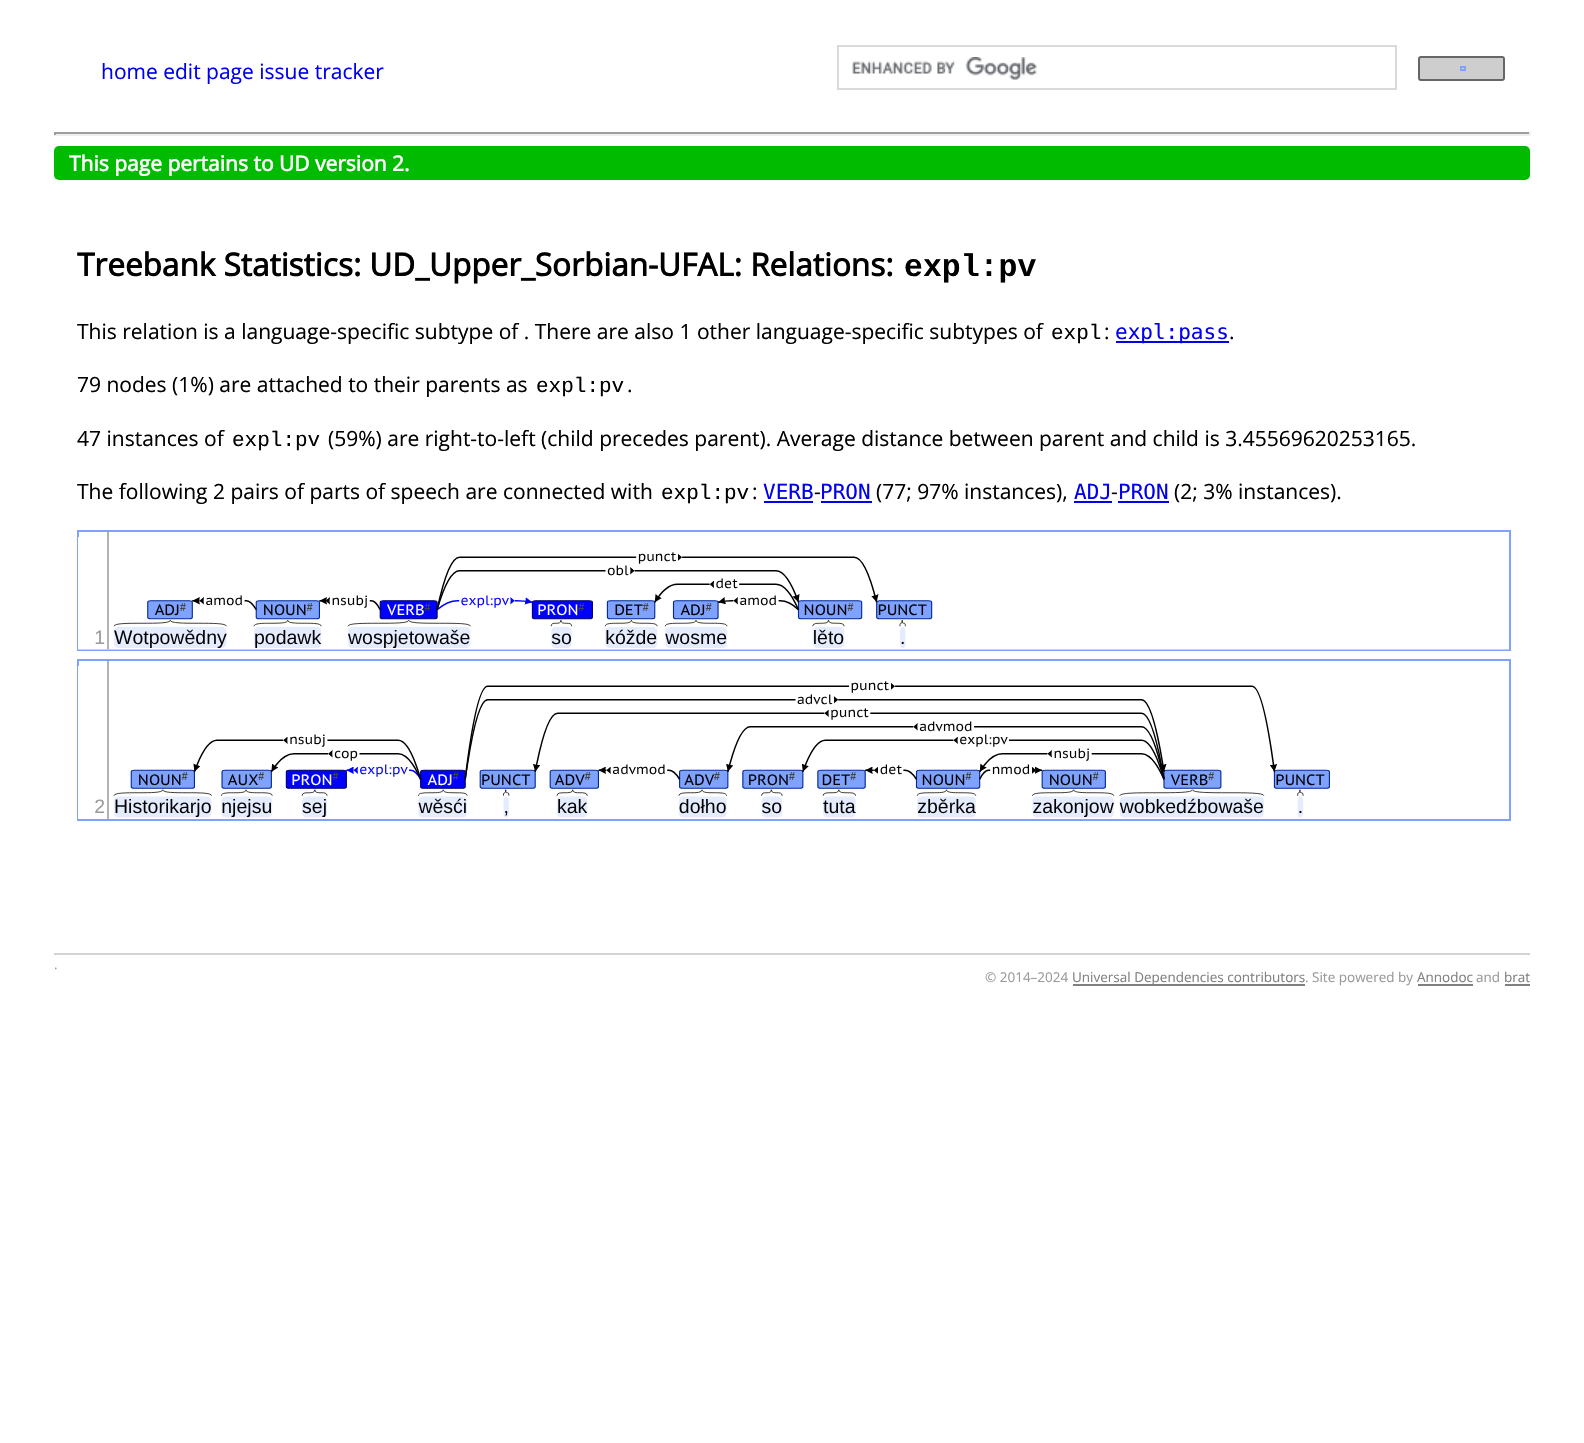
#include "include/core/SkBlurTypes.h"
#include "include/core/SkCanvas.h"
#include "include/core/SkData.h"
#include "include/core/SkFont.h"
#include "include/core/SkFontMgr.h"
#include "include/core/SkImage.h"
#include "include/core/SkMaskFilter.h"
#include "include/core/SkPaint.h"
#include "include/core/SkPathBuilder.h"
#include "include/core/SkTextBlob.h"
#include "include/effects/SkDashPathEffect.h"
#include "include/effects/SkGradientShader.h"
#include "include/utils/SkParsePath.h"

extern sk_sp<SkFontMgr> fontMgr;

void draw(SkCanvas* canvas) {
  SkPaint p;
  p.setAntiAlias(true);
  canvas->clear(SK_ColorWHITE);
  p.setStyle(SkPaint::kStroke_Style);
  p.setStrokeWidth(2);
  p.setColor(SkColorSetRGB(217, 217, 217));
  canvas->drawRect(SkRect::MakeLTRB(838, 46, 1396, 89), p);
  canvas->drawImageRect(SkImages::DeferredFromEncodedData(SkData::MakeFromFileName("images/1.png")), SkRect::MakeLTRB(852, 57, 1037, 80), SkSamplingOptions());
  p.setStyle(SkPaint::kFill_Style);
  p.setColor(SkColorSetRGB(206, 206, 206));
  canvas->drawRoundRect(SkRect::MakeLTRB(1419, 57, 1504, 80), 2, 2, p);
  p.setStyle(SkPaint::kStroke_Style);
  p.setColor(SkColorSetRGB(102, 102, 102));
  canvas->drawRoundRect(SkRect::MakeLTRB(1419, 57, 1504, 80), 2, 2, p);
  p.setColor(SkColorSetRGB(127, 162, 255));
  canvas->drawRect(SkRect::MakeLTRB(1461, 67, 1465, 70), p);
  canvas->drawImageRect(SkImages::DeferredFromEncodedData(SkData::MakeFromFileName("images/2.png")), SkRect::MakeLTRB(1461, 68, 1463, 69), SkSamplingOptions());
  p.setStyle(SkPaint::kFill_Style);
  p.setColor(SkColorSetRGB(159, 159, 159));
  canvas->drawRect(SkRect::MakeLTRB(54, 132, 1530, 134), p);
  p.setColor(SkColorSetRGB(238, 238, 238));
  canvas->drawRect(SkRect::MakeLTRB(1529, 132, 1531, 135), p);
  canvas->drawRect(SkRect::MakeLTRB(54, 134, 1530, 136), p);
  p.setColor(SkColorSetRGB(159, 159, 159));
  canvas->drawRect(SkRect::MakeLTRB(54, 132, 56, 135), p);
  p.setColor(SkColorSetRGB(0, 187, 0));
  canvas->drawRoundRect(SkRect::MakeLTRB(54, 146, 1530, 180), 5, 5, p);
  p.setColor(SkColorSetRGB(0, 0, 238));
  canvas->drawRect(SkRect::MakeLTRB(1116, 341, 1229, 343), p);
  canvas->drawRect(SkRect::MakeLTRB(764, 501, 813, 503), p);
  canvas->drawRect(SkRect::MakeLTRB(821, 501, 872, 503), p);
  canvas->drawRect(SkRect::MakeLTRB(1074, 501, 1112, 503), p);
  canvas->drawRect(SkRect::MakeLTRB(1118, 501, 1169, 503), p);
  p.setStyle(SkPaint::kStroke_Style);
  p.setColor(SkColorSetRGB(127, 162, 255));
  canvas->drawRect(SkRect::MakeLTRB(78, 531, 1510, 650), p);
  canvas->drawImageRect(SkImages::DeferredFromEncodedData(SkData::MakeFromFileName("images/3.png")), SkRect::MakeLTRB(78, 531, 1509, 650), SkSamplingOptions());
  canvas->drawRect(SkRect::MakeLTRB(78, 660, 1510, 820), p);
  canvas->drawImageRect(SkImages::DeferredFromEncodedData(SkData::MakeFromFileName("images/4.png")), SkRect::MakeLTRB(78, 660, 1330, 819), SkSamplingOptions());
  p.setStyle(SkPaint::kFill_Style);
  p.setColor(SkColorSetRGB(211, 211, 211));
  canvas->drawRect(SkRect::MakeLTRB(54, 953, 1530, 955), p);
  p.setColor(SkColorSetRGB(128, 128, 128));
  canvas->drawRect(SkRect::MakeLTRB(1073, 984, 1305, 986), p);
  canvas->drawRect(SkRect::MakeLTRB(1418, 984, 1473, 986), p);
  canvas->drawRect(SkRect::MakeLTRB(1505, 984, 1530, 986), p);
  SkFont font1(fontMgr->matchFamilyStyle("Open Sans", SkFontStyle::Normal()), 21);
  font1.setSubpixel(true);
  p.setColor(SkColorSetRGB(0, 0, 238));
  canvas->drawString("home edit page issue tracker", 101, 79, font1, p);
  SkFont font2(fontMgr->matchFamilyStyle("Open Sans", SkFontStyle::Bold()), 21);
  font2.setSubpixel(true);
  p.setColor(SK_ColorWHITE);
  canvas->drawString("This page pertains to UD version 2.", 69, 171, font2, p);
  SkFont font3(fontMgr->matchFamilyStyle("Open Sans", SkFontStyle::Bold()), 31.5f);
  font3.setSubpixel(true);
  p.setColor(SK_ColorBLACK);
  canvas->drawString("Treebank Statistics: UD_Upper_Sorbian-UFAL: Relations:", 77, 276, font3, p);
  SkFont font4(fontMgr->matchFamilyStyle("Liberation Mono", SkFontStyle::Bold()), 31.5f);
  font4.setSubpixel(true);
  canvas->drawString("expl:pv", 904, 276, font4, p);
  canvas->drawString("This relation is a language-specific subtype of . There are also 1 other language-specific subtypes of", 77, 339, font1, p);
  SkFont font5(fontMgr->matchFamilyStyle("Liberation Mono", SkFontStyle::Normal()), 21);
  font5.setSubpixel(true);
  canvas->drawString("expl", 1051, 339, font5, p);
  canvas->drawString(":", 1104, 339, font1, p);
  SkFont font6(fontMgr->matchFamilyStyle("DejaVu Sans Mono", SkFontStyle::Normal()), 21);
  font6.setSubpixel(true);
  p.setColor(SkColorSetRGB(0, 0, 238));
  canvas->drawString("expl:pass", 1115, 339, font6, p);
  p.setColor(SK_ColorBLACK);
  canvas->drawString(".", 1229, 339, font1, p);
  canvas->drawString("79 nodes (1%) are attached to their parents as", 77, 392, font1, p);
  canvas->drawString("expl:pv", 536, 392, font5, p);
  canvas->drawString(".", 627, 392, font1, p);
  canvas->drawString("47 instances of", 77, 446, font1, p);
  canvas->drawString("expl:pv", 232, 446, font5, p);
  canvas->drawString("(59%) are right-to-left (child precedes parent). Average distance between parent and child is 3.45569620253165.", 328, 446, font1, p);
  canvas->drawString("The following 2 pairs of parts of speech are connected with", 77, 499, font1, p);
  canvas->drawString("expl:pv", 661, 499, font5, p);
  canvas->drawString(":", 752, 499, font1, p);
  p.setColor(SkColorSetRGB(0, 0, 238));
  canvas->drawString("VERB", 763, 499, font6, p);
  p.setColor(SK_ColorBLACK);
  canvas->drawString("-", 814, 499, font1, p);
  p.setColor(SkColorSetRGB(0, 0, 238));
  canvas->drawString("PRON", 820, 499, font6, p);
  p.setColor(SK_ColorBLACK);
  canvas->drawString("(77; 97% instances),", 876, 499, font1, p);
  p.setColor(SkColorSetRGB(0, 0, 238));
  canvas->drawString("ADJ", 1074, 499, font6, p);
  p.setColor(SK_ColorBLACK);
  canvas->drawString("-", 1111, 499, font1, p);
  p.setColor(SkColorSetRGB(0, 0, 238));
  canvas->drawString("PRON", 1118, 499, font6, p);
  p.setColor(SK_ColorBLACK);
  canvas->drawString("(2; 3% instances).", 1174, 499, font1, p);
  SkFont font7(fontMgr->matchFamilyStyle("Open Sans", SkFontStyle::Normal()), 13.5f);
  font7.setSubpixel(true);
  p.setColor(SkColorSetRGB(153, 153, 153));
  canvas->drawString(".", 54, 969, font7, p);
  canvas->drawString("© 2014–2024", 985, 982, font7, p);
  p.setColor(SkColorSetRGB(128, 128, 128));
  canvas->drawString("Universal Dependencies contributors", 1072, 982, font7, p);
  p.setColor(SkColorSetRGB(153, 153, 153));
  canvas->drawString(". Site powered by", 1305, 982, font7, p);
  p.setColor(SkColorSetRGB(128, 128, 128));
  canvas->drawString("Annodoc", 1417, 982, font7, p);
  p.setColor(SkColorSetRGB(153, 153, 153));
  canvas->drawString("and", 1476, 982, font7, p);
  p.setColor(SkColorSetRGB(128, 128, 128));
  canvas->drawString("brat", 1504, 982, font7, p);
}
